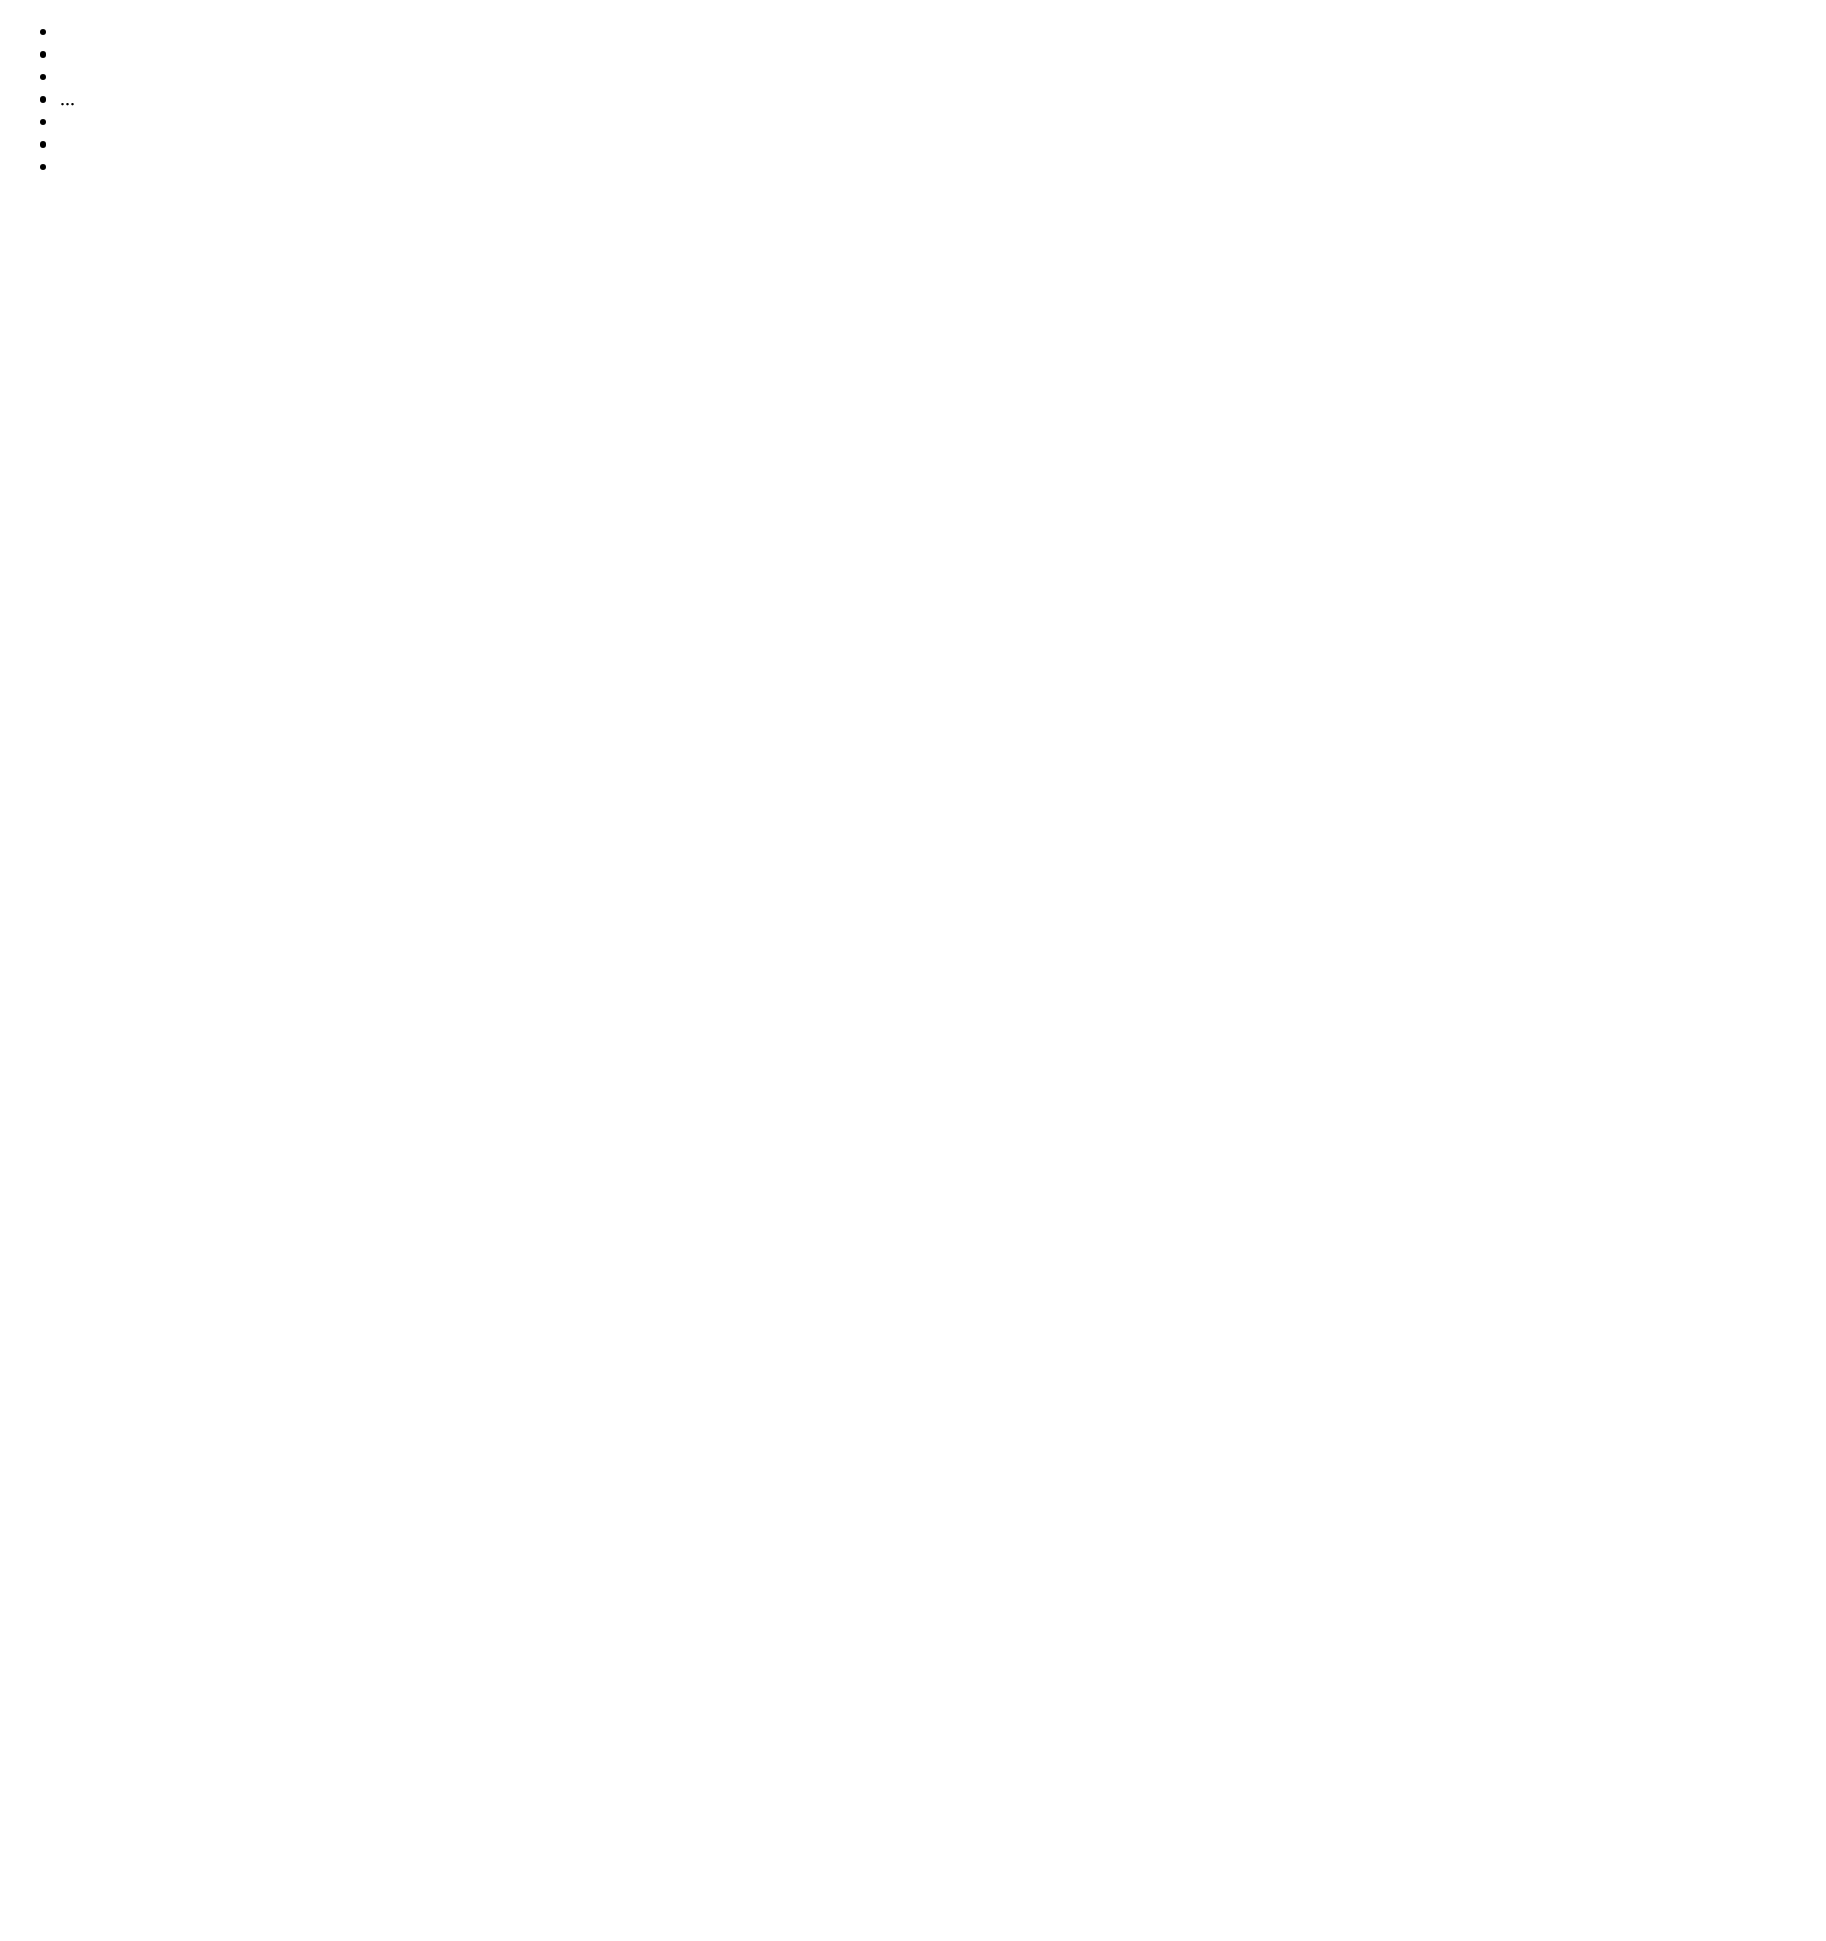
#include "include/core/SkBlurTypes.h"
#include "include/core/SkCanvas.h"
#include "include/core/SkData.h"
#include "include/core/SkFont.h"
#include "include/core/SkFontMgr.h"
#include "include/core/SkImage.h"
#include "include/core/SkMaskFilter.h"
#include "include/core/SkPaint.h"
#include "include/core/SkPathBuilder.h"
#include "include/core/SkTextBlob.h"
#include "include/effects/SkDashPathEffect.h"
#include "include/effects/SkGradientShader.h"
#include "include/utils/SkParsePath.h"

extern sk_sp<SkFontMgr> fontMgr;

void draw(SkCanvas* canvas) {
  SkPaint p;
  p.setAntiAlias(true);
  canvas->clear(SK_ColorWHITE);
  p.setColor(SK_ColorBLACK);
  canvas->drawCircle(43, 32, 3, p);
  canvas->drawRoundRect(SkRect::MakeLTRB(40, 51, 46, 58), 3, 3, p);
  canvas->drawCircle(43, 77, 3, p);
  canvas->drawRoundRect(SkRect::MakeLTRB(40, 96, 46, 103), 3, 3, p);
  canvas->drawCircle(43, 122, 3, p);
  canvas->drawRoundRect(SkRect::MakeLTRB(40, 141, 46, 148), 3, 3, p);
  canvas->drawCircle(43, 167, 3, p);
  SkFont font1(fontMgr->matchFamilyStyle("Liberation Serif", SkFontStyle::Normal()), 20);
  font1.setSubpixel(true);
  canvas->drawString("...", 60, 105, font1, p);
}
